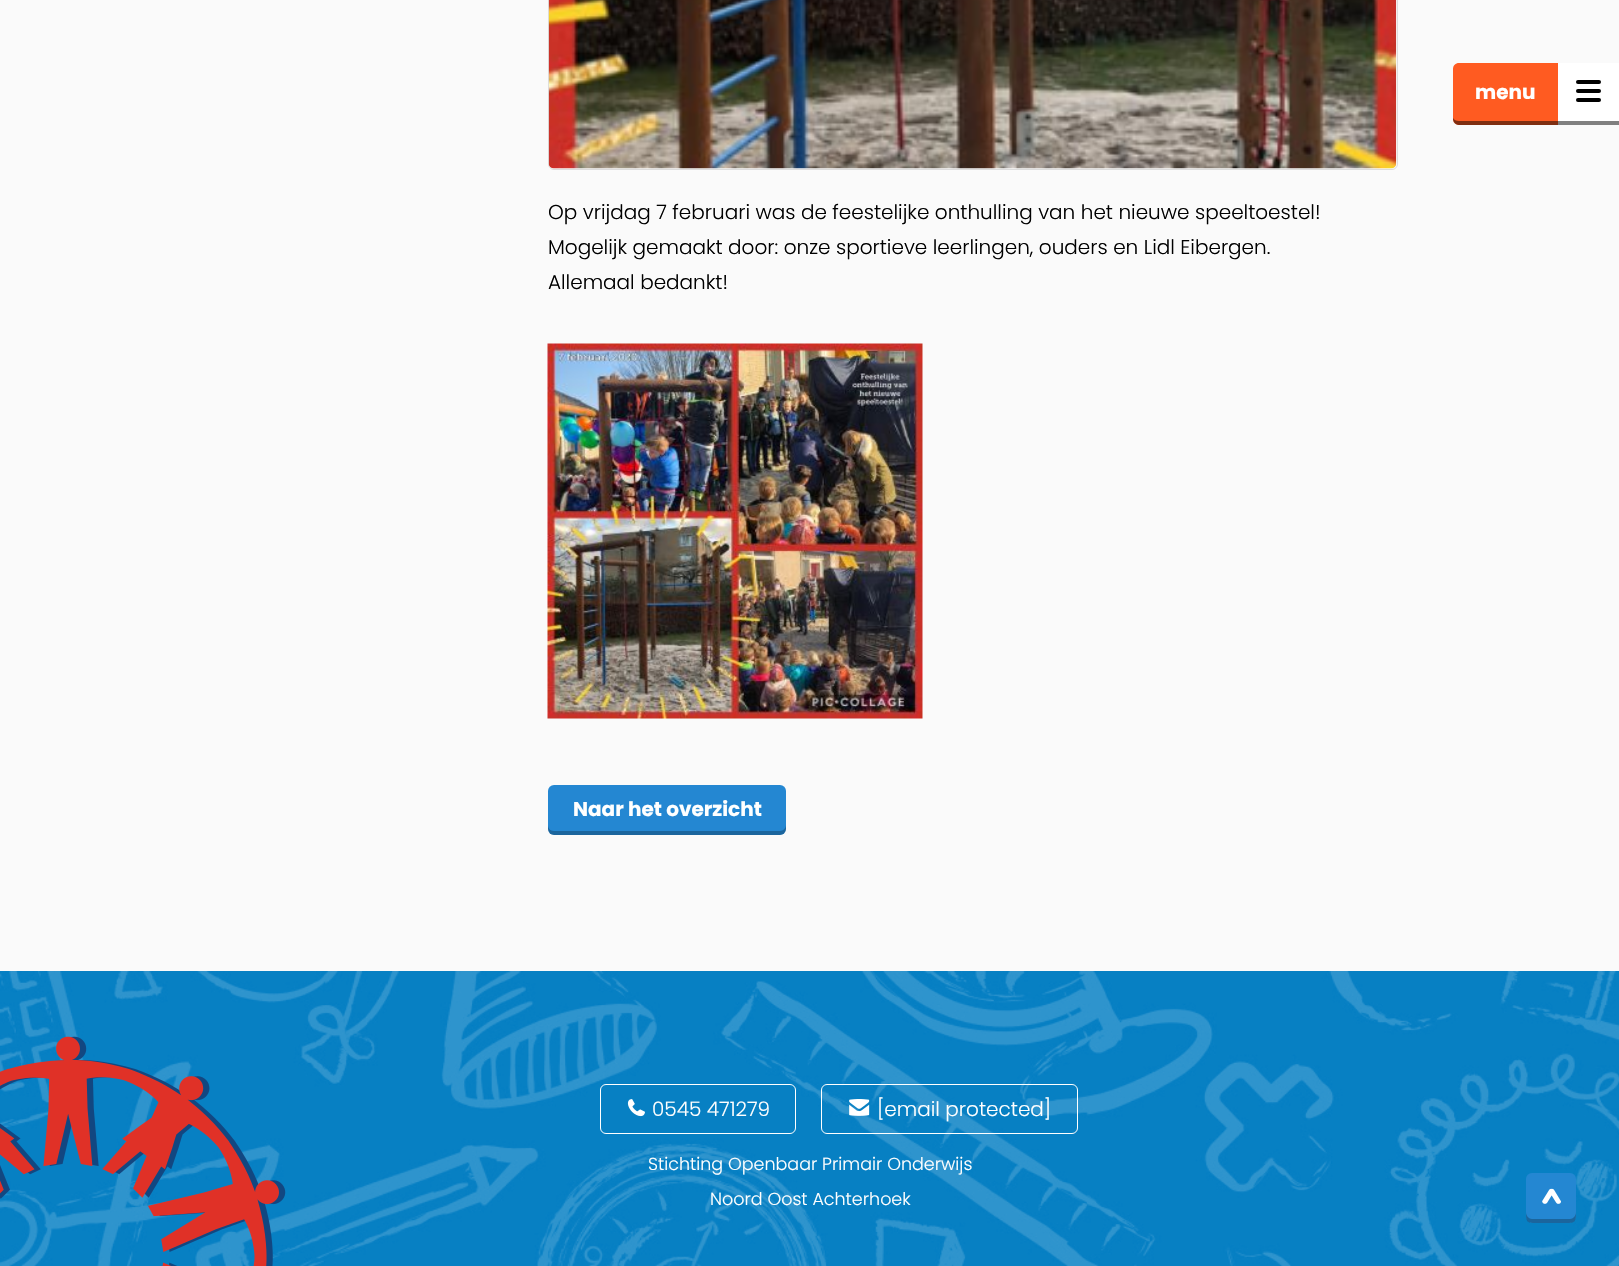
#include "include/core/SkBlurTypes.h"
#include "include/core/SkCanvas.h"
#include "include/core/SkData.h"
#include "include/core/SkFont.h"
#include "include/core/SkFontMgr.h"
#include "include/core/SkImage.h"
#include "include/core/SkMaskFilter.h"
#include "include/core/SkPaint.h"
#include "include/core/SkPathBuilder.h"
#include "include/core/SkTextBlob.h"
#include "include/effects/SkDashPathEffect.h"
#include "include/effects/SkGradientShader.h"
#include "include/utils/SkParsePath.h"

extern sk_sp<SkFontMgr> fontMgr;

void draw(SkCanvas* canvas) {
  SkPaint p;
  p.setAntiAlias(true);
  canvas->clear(SkColorSetRGB(250, 250, 250));
  p.setColor(SkColorSetRGB(255, 91, 33));
  canvas->drawPath(SkPathBuilder().moveTo(1459, 63).lineTo(1558, 63).lineTo(1558, 125).lineTo(1459, 125).cubicTo(1455.5f, 125, 1453, 122.5f, 1453, 119).lineTo(1453, 69).cubicTo(1453, 65.5f, 1455.5f, 63, 1459, 63).close().detach(), p);
  p.setColor(SkColorSetARGB(128, 0, 0, 0));
  canvas->drawPath(SkPathBuilder().moveTo(1453, 118).lineTo(1453, 119).cubicTo(1453, 122, 1456, 125, 1459, 125).lineTo(1558, 125).lineTo(1558, 121).lineTo(1459, 121).cubicTo(1456, 121, 1454, 120, 1453, 118).close().detach(), p);
  p.setColor(SK_ColorWHITE);
  canvas->drawRect(SkRect::MakeLTRB(1558, 63, 1619, 121), p);
  p.setColor(SkColorSetRGB(128, 128, 128));
  canvas->drawRect(SkRect::MakeLTRB(1558, 121, 1619, 125), p);
  p.setColor(SK_ColorBLACK);
  canvas->drawRoundRect(SkRect::MakeLTRB(1576, 89, 1601, 93), 2, 2, p);
  canvas->drawRoundRect(SkRect::MakeLTRB(1576, 80, 1601, 84), 2, 2, p);
  canvas->drawRoundRect(SkRect::MakeLTRB(1576, 98, 1601, 102), 2, 2, p);
  p.setStyle(SkPaint::kStroke_Style);
  p.setStrokeWidth(1);
  p.setColor(SkColorSetRGB(221, 221, 221));
  canvas->drawRoundRect(SkRect::MakeLTRB(548.5f, -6.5f, 1397.5f, 169.5f), 5.5f, 5.5f, p);
  canvas->drawImageRect(SkImages::DeferredFromEncodedData(SkData::MakeFromFileName("images/1.png")), SkRect::MakeLTRB(548, 0, 1397, 169), SkSamplingOptions());
  canvas->drawImageRect(SkImages::DeferredFromEncodedData(SkData::MakeFromFileName("images/2.png")), SkRect::MakeLTRB(547, 343, 923, 719), SkSamplingOptions());
  p.setStyle(SkPaint::kFill_Style);
  p.setColor(SkColorSetRGB(36, 135, 210));
  canvas->drawRoundRect(SkRect::MakeLTRB(548, 785, 786, 835), 6, 6, p);
  p.setColor(SkColorSetARGB(64, 0, 0, 0));
  canvas->drawPath(SkPathBuilder().moveTo(548, 825).lineTo(548, 829).cubicTo(548, 832, 551, 835, 554, 835).lineTo(780, 835).cubicTo(783, 835, 786, 832, 786, 829).lineTo(786, 825).cubicTo(786, 828, 783, 831, 780, 831).lineTo(554, 831).cubicTo(550, 831, 548, 828, 548, 825).close().detach(), p);
  p.setColor(SkColorSetRGB(0, 124, 194));
  canvas->drawRect(SkRect::MakeLTRB(0, 971, 1619, 1266), p);
  canvas->drawImageRect(SkImages::DeferredFromEncodedData(SkData::MakeFromFileName("images/4.png")), SkRect::MakeLTRB(0, 971, 1619, 1266), SkSamplingOptions());
  p.setColor(SkColorSetRGB(36, 135, 210));
  canvas->drawRoundRect(SkRect::MakeLTRB(1526, 1173, 1576, 1223), 6, 6, p);
  canvas->drawImageRect(SkImages::DeferredFromEncodedData(SkData::MakeFromFileName("images/3.png")), SkRect::MakeLTRB(1542, 1188, 1561, 1204), SkSamplingOptions());
  p.setColor(SkColorSetARGB(64, 0, 0, 0));
  canvas->drawPath(SkPathBuilder().moveTo(1526, 1212).cubicTo(1526, 1223, 1527, 1223, 1538, 1223).lineTo(1564, 1223).cubicTo(1575, 1223, 1576, 1223, 1576, 1212).cubicTo(1576, 1216, 1573, 1219, 1570, 1219).lineTo(1532, 1219).cubicTo(1529, 1219, 1526, 1216, 1526, 1212).close().detach(), p);
  canvas->drawImageRect(SkImages::DeferredFromEncodedData(SkData::MakeFromFileName("images/5.png")), SkRect::MakeLTRB(0, 1036, 286, 1266), SkSamplingOptions());
  canvas->drawImageRect(SkImages::DeferredFromEncodedData(SkData::MakeFromFileName("images/6.png")), SkRect::MakeLTRB(0, 1036, 279, 1266), SkSamplingOptions());
  p.setStyle(SkPaint::kStroke_Style);
  p.setColor(SK_ColorWHITE);
  canvas->drawRoundRect(SkRect::MakeLTRB(600.5f, 1084.5f, 795.5f, 1133.5f), 5.5f, 5.5f, p);
  canvas->drawImageRect(SkImages::DeferredFromEncodedData(SkData::MakeFromFileName("images/7.png")), SkRect::MakeLTRB(627, 1099, 645, 1117), SkSamplingOptions());
  canvas->drawRoundRect(SkRect::MakeLTRB(821.5f, 1084.5f, 1077.5f, 1133.5f), 5.5f, 5.5f, p);
  canvas->drawImageRect(SkImages::DeferredFromEncodedData(SkData::MakeFromFileName("images/8.png")), SkRect::MakeLTRB(849, 1099, 870, 1116), SkSamplingOptions());
  SkFont font1(fontMgr->matchFamilyStyle("Poppins", SkFontStyle::Bold()), 20);
  font1.setSubpixel(true);
  p.setStyle(SkPaint::kFill_Style);
  canvas->drawString("menu", 1475, 99, font1, p);
  SkFont font2(fontMgr->matchFamilyStyle("Poppins", SkFontStyle(300, SkFontStyle::kNormal_Width, SkFontStyle::kUpright_Slant)), 20);
  font2.setSubpixel(true);
  p.setColor(SK_ColorBLACK);
  canvas->drawString("Op vrijdag 7 februari was de feestelijke onthulling van het nieuwe speeltoestel!", 548, 219, font2, p);
  canvas->drawString("Mogelijk gemaakt door: onze sportieve leerlingen, ouders en Lidl Eibergen.", 548, 254, font2, p);
  canvas->drawString("Allemaal bedankt!", 548, 289, font2, p);
  p.setColor(SK_ColorWHITE);
  canvas->drawString("Naar het overzicht", 573, 816, font1, p);
  canvas->drawString("0545 471279", 652, 1116, font2, p);
  canvas->drawString("[email protected]", 877, 1116, font2, p);
  SkFont font3(fontMgr->matchFamilyStyle("Poppins", SkFontStyle(300, SkFontStyle::kNormal_Width, SkFontStyle::kUpright_Slant)), 17.5f);
  font3.setSubpixel(true);
  canvas->drawString("Stichting Openbaar Primair Onderwijs", 648, 1170, font3, p);
  canvas->drawString("Noord Oost Achterhoek", 710, 1205, font3, p);
}
